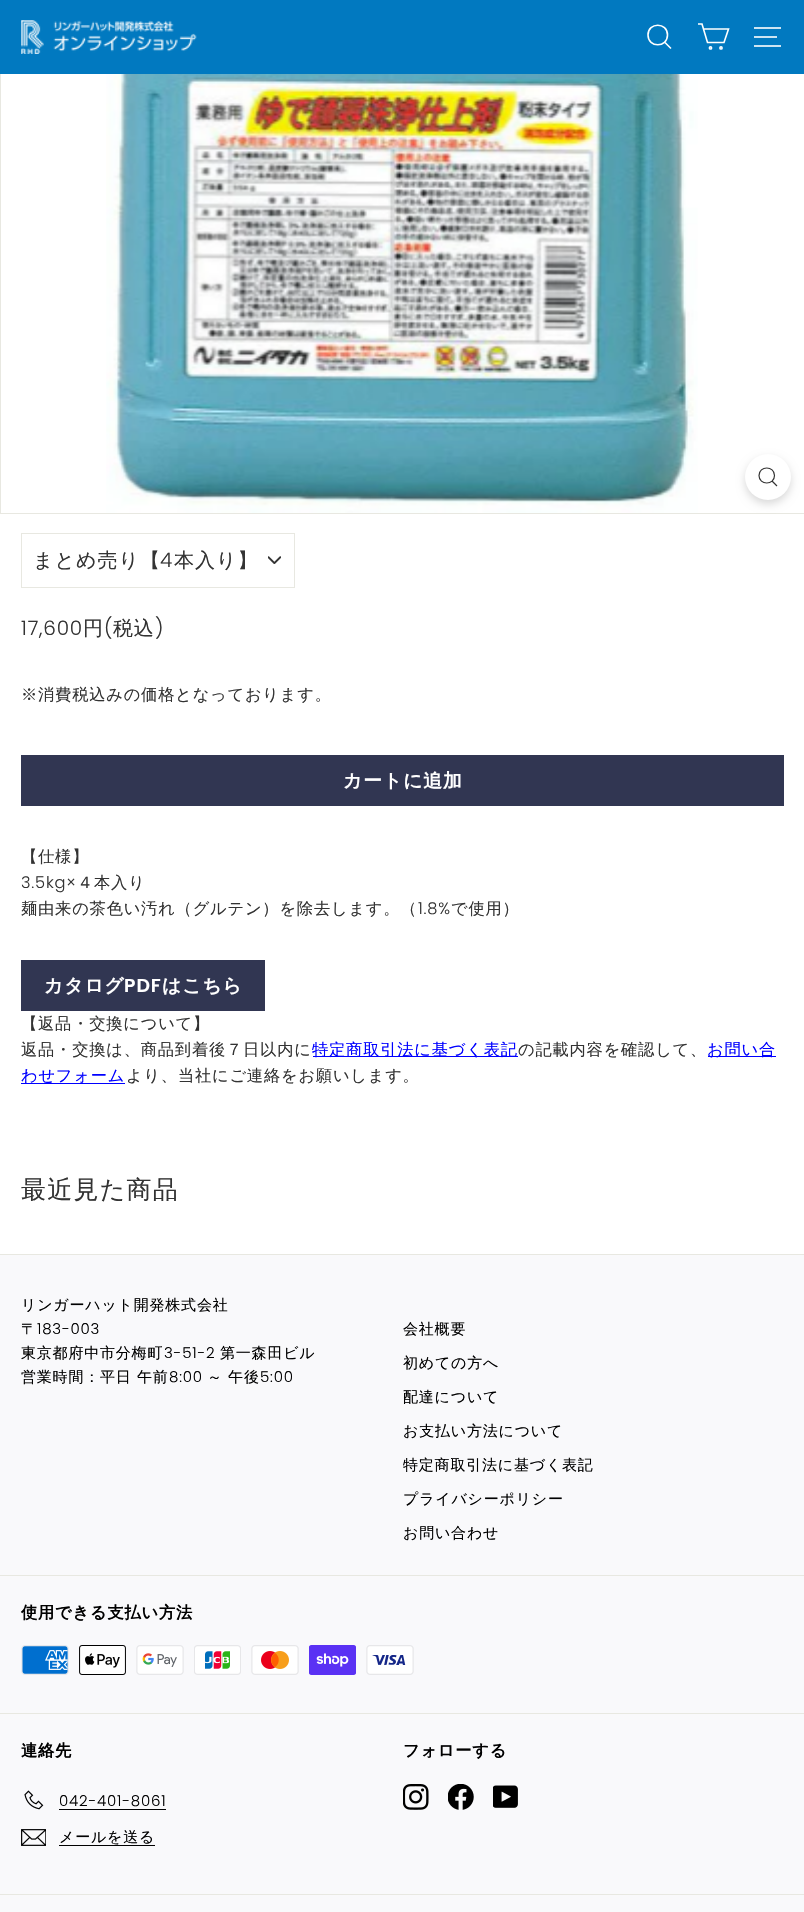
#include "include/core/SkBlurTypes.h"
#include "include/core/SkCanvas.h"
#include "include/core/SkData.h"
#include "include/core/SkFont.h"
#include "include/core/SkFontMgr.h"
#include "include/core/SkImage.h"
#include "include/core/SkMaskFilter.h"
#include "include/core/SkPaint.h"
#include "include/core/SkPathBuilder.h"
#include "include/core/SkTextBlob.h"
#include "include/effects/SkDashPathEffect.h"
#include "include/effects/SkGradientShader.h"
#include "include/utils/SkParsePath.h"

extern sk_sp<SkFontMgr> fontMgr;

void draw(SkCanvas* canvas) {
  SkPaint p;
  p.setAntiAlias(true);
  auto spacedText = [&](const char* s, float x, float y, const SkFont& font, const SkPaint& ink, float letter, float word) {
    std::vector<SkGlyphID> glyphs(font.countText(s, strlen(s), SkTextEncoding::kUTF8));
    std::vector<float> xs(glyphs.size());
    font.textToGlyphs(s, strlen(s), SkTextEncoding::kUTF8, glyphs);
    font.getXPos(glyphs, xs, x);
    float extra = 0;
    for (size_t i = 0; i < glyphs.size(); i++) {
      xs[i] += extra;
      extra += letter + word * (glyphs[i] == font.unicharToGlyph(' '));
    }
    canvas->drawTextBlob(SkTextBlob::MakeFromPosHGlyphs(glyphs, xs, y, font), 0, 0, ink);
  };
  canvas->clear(SK_ColorWHITE);
  p.setStyle(SkPaint::kStroke_Style);
  p.setStrokeWidth(1);
  p.setColor(SkColorSetRGB(232, 232, 225));
  canvas->drawRect(SkRect::MakeLTRB(0.5f, -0.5f, 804.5f, 513.5f), p);
  p.setStyle(SkPaint::kFill_Style);
  p.setColor(SkColorSetRGB(1, 121, 192));
  canvas->drawRect(SkRect::MakeLTRB(0, 0, 804, 74), p);
  canvas->drawImageRect(SkImages::DeferredFromEncodedData(SkData::MakeFromFileName("images/1.png")), SkRect::MakeLTRB(21, 20, 197, 54), SkSamplingOptions());
  p.setStyle(SkPaint::kStroke_Style);
  p.setStrokeWidth(1.6f);
  p.setColor(SK_ColorWHITE);
  canvas->drawPath(SkPathBuilder().moveTo(667.5f, 35).cubicTo(667.5f, 48, 648, 48, 648, 35).cubicTo(648, 22, 667.5f, 22, 667.5f, 35).close().moveTo(671, 48.5f).lineTo(664.5f, 42).detach(), p);
  canvas->drawPath(SkPathBuilder().moveTo(703.5f, 29).lineTo(728.5f, 29).lineTo(724, 42.5f).lineTo(707.5f, 42.5f).lineTo(702, 24).lineTo(698, 24).detach(), p);
  canvas->drawCircle(710.5f, 47.9f, 1.1f, p);
  canvas->drawCircle(721, 47.9f, 1.1f, p);
  p.setStyle(SkPaint::kFill_Style);
  p.setColor(SkColorSetRGB(204, 228, 242));
  canvas->drawRect(SkRect::MakeLTRB(754, 27, 781, 29), p);
  canvas->drawRect(SkRect::MakeLTRB(754, 36, 777, 38), p);
  canvas->drawRect(SkRect::MakeLTRB(754, 45, 781, 47), p);
  canvas->drawImageRect(SkImages::DeferredFromEncodedData(SkData::MakeFromFileName("images/2.png")), SkRect::MakeLTRB(106, 74, 698, 513), SkSamplingOptions());
  p.setColor(SkColorSetARGB(38, 0, 0, 0));
  p.setMaskFilter(SkMaskFilter::MakeBlur(kNormal_SkBlurStyle, 4));
  canvas->drawRoundRect(SkRect::MakeLTRB(745, 458, 791, 504), 23, 23, p);
  p.setMaskFilter(nullptr);
  p.setColor(SK_ColorWHITE);
  canvas->drawCircle(768, 477, 23, p);
  p.setStyle(SkPaint::kStroke_Style);
  p.setStrokeWidth(1.2f);
  p.setColor(SkColorSetRGB(51, 51, 51));
  canvas->drawPath(SkPathBuilder().moveTo(774.5f, 475.5f).cubicTo(774.5f, 485.5f, 759, 485.5f, 759, 475.5f).cubicTo(759, 465.5f, 774.5f, 465.5f, 774.5f, 475.5f).close().moveTo(777, 486).lineTo(772, 481).detach(), p);
  canvas->drawImageRect(SkImages::DeferredFromEncodedData(SkData::MakeFromFileName("images/3.png")), SkRect::MakeLTRB(268, 556, 281, 564), SkSamplingOptions());
  p.setStrokeWidth(1);
  p.setColor(SkColorSetRGB(232, 232, 225));
  canvas->drawRect(SkRect::MakeLTRB(21.5f, 533.5f, 294.5f, 587.5f), p);
  p.setStyle(SkPaint::kFill_Style);
  p.setColor(SkColorSetRGB(49, 54, 82));
  canvas->drawRect(SkRect::MakeLTRB(21, 755, 784, 806), p);
  canvas->drawRect(SkRect::MakeLTRB(21, 960, 265, 1011), p);
  p.setColor(SkColorSetRGB(0, 0, 255));
  canvas->drawRect(SkRect::MakeLTRB(313, 1056, 518, 1057), p);
  canvas->drawRect(SkRect::MakeLTRB(708, 1056, 776, 1057), p);
  canvas->drawRect(SkRect::MakeLTRB(21, 1083, 125, 1084), p);
  p.setColor(SkColorSetRGB(249, 249, 251));
  canvas->drawRect(SkRect::MakeLTRB(0, 1255, 804, 1912), p);
  p.setColor(SkColorSetRGB(232, 232, 225));
  canvas->drawRect(SkRect::MakeLTRB(0, 1254, 804, 1255), p);
  canvas->drawRect(SkRect::MakeLTRB(0, 1575, 804, 1576), p);
  canvas->drawImageRect(SkImages::DeferredFromEncodedData(SkData::MakeFromFileName("images/4.png")), SkRect::MakeLTRB(21, 1645, 69, 1675), SkSamplingOptions());
  canvas->drawImageRect(SkImages::DeferredFromEncodedData(SkData::MakeFromFileName("images/5.png")), SkRect::MakeLTRB(79, 1645, 126, 1675), SkSamplingOptions());
  canvas->drawImageRect(SkImages::DeferredFromEncodedData(SkData::MakeFromFileName("images/6.png")), SkRect::MakeLTRB(136, 1645, 184, 1675), SkSamplingOptions());
  canvas->drawImageRect(SkImages::DeferredFromEncodedData(SkData::MakeFromFileName("images/7.png")), SkRect::MakeLTRB(194, 1645, 241, 1675), SkSamplingOptions());
  canvas->drawImageRect(SkImages::DeferredFromEncodedData(SkData::MakeFromFileName("images/8.png")), SkRect::MakeLTRB(251, 1645, 299, 1675), SkSamplingOptions());
  canvas->drawImageRect(SkImages::DeferredFromEncodedData(SkData::MakeFromFileName("images/9.png")), SkRect::MakeLTRB(309, 1645, 356, 1675), SkSamplingOptions());
  canvas->drawImageRect(SkImages::DeferredFromEncodedData(SkData::MakeFromFileName("images/10.png")), SkRect::MakeLTRB(366, 1645, 414, 1675), SkSamplingOptions());
  canvas->drawRect(SkRect::MakeLTRB(0, 1713, 804, 1714), p);
  canvas->drawImageRect(SkImages::DeferredFromEncodedData(SkData::MakeFromFileName("images/11.png")), SkRect::MakeLTRB(24, 1790, 44, 1810), SkSamplingOptions());
  p.setColor(SK_ColorBLACK);
  canvas->drawRect(SkRect::MakeLTRB(59, 1809, 166, 1810), p);
  canvas->drawImageRect(SkImages::DeferredFromEncodedData(SkData::MakeFromFileName("images/12.png")), SkRect::MakeLTRB(21, 1829, 46, 1846), SkSamplingOptions());
  canvas->drawRect(SkRect::MakeLTRB(59, 1845, 155, 1846), p);
  canvas->drawImageRect(SkImages::DeferredFromEncodedData(SkData::MakeFromFileName("images/13.png")), SkRect::MakeLTRB(403, 1784, 429, 1810), SkSamplingOptions());
  canvas->drawImageRect(SkImages::DeferredFromEncodedData(SkData::MakeFromFileName("images/14.png")), SkRect::MakeLTRB(448, 1784, 474, 1810), SkSamplingOptions());
  canvas->drawImageRect(SkImages::DeferredFromEncodedData(SkData::MakeFromFileName("images/15.png")), SkRect::MakeLTRB(493, 1785, 518, 1808), SkSamplingOptions());
  p.setColor(SkColorSetRGB(232, 232, 225));
  canvas->drawRect(SkRect::MakeLTRB(0, 1894, 804, 1895), p);
  SkFont font1(fontMgr->matchFamilyStyle("WenQuanYi Zen Hei", SkFontStyle(500, SkFontStyle::kNormal_Width, SkFontStyle::kUpright_Slant)), 20);
  font1.setSubpixel(true);
  p.setColor(SkColorSetRGB(51, 51, 51));
  spacedText("まとめ売り【", 33, 567, font1, p, 1, 0);
  SkFont font2(fontMgr->matchFamilyStyle("Poppins", SkFontStyle(300, SkFontStyle::kNormal_Width, SkFontStyle::kUpright_Slant)), 20);
  font2.setSubpixel(true);
  spacedText("4", 160, 567, font2, p, 1, 0);
  spacedText("本入り】", 174, 567, font1, p, 1, 0);
  spacedText("17,600", 21, 635, font2, p, 0.8f, 0);
  spacedText("円", 83, 635, font1, p, 0.8f, 0);
  spacedText("(", 104, 635, font2, p, 0.8f, 0);
  spacedText("税込", 113, 635, font1, p, 0.8f, 0);
  spacedText(")", 155, 635, font2, p, 0.8f, 0);
  SkFont font3(fontMgr->matchFamilyStyle("WenQuanYi Zen Hei", SkFontStyle(500, SkFontStyle::kNormal_Width, SkFontStyle::kUpright_Slant)), 16.25f);
  font3.setSubpixel(true);
  spacedText("※消費税込みの価格となっております。", 21, 700, font3, p, 0.8f, 0);
  SkFont font4(fontMgr->matchFamilyStyle("WenQuanYi Zen Hei", SkFontStyle::Bold()), 18.75f);
  font4.setSubpixel(true);
  p.setColor(SK_ColorWHITE);
  spacedText("カートに追加", 343, 787, font4, p, 1, 0);
  p.setColor(SkColorSetRGB(51, 51, 51));
  spacedText("【仕様】", 21, 862, font3, p, 0.8f, 0);
  SkFont font5(fontMgr->matchFamilyStyle("Poppins", SkFontStyle(300, SkFontStyle::kNormal_Width, SkFontStyle::kUpright_Slant)), 16.25f);
  font5.setSubpixel(true);
  spacedText("3.5kg×", 21, 888, font5, p, 0.8f, 0);
  spacedText("４本入り", 77, 888, font3, p, 0.8f, 0);
  spacedText("麺由来の茶色い汚れ（グルテン）を除去します。（", 21, 914, font3, p, 0.8f, 0);
  spacedText("1.8%", 418, 914, font5, p, 0.8f, 0);
  spacedText("で使用）", 451, 914, font3, p, 0.8f, 0);
  p.setColor(SK_ColorWHITE);
  spacedText("カタログ", 44, 992, font4, p, 1, 0);
  SkFont font6(fontMgr->matchFamilyStyle("Poppins", SkFontStyle(600, SkFontStyle::kNormal_Width, SkFontStyle::kUpright_Slant)), 18.75f);
  font6.setSubpixel(true);
  spacedText("PDF", 124, 992, font6, p, 1, 0);
  spacedText("はこちら", 162, 992, font4, p, 1, 0);
  p.setColor(SkColorSetRGB(51, 51, 51));
  spacedText("【返品・交換について】", 21, 1029, font3, p, 0.8f, 0);
  spacedText("返品・交換は、商品到着後７日以内に", 21, 1055, font3, p, 0.8f, 0);
  p.setColor(SkColorSetRGB(0, 0, 255));
  spacedText("特定商取引法に基づく表記", 312, 1055, font3, p, 0.8f, 0);
  p.setColor(SkColorSetRGB(51, 51, 51));
  spacedText("の記載内容を確認して、", 518, 1055, font3, p, 0.8f, 0);
  p.setColor(SkColorSetRGB(0, 0, 255));
  spacedText("お問い合", 707, 1055, font3, p, 0.8f, 0);
  spacedText("わせフォーム", 21, 1081, font3, p, 0.8f, 0);
  p.setColor(SkColorSetRGB(51, 51, 51));
  spacedText("より、当社にご連絡をお願いします。", 126, 1081, font3, p, 0.8f, 0);
  SkFont font7(fontMgr->matchFamilyStyle("WenQuanYi Zen Hei", SkFontStyle(500, SkFontStyle::kNormal_Width, SkFontStyle::kUpright_Slant)), 25);
  font7.setSubpixel(true);
  spacedText("最近見た商品", 21, 1198, font7, p, 1.25f, 0);
  SkFont font8(fontMgr->matchFamilyStyle("WenQuanYi Zen Hei", SkFontStyle(500, SkFontStyle::kNormal_Width, SkFontStyle::kUpright_Slant)), 15);
  font8.setSubpixel(true);
  p.setColor(SK_ColorBLACK);
  spacedText("リンガーハット開発株式会社", 21, 1310, font8, p, 0.8f, 0);
  spacedText("〒", 21, 1334, font8, p, 0.8f, 0);
  SkFont font9(fontMgr->matchFamilyStyle("Poppins", SkFontStyle(300, SkFontStyle::kNormal_Width, SkFontStyle::kUpright_Slant)), 15);
  font9.setSubpixel(true);
  spacedText("183-003", 37, 1334, font9, p, 0.8f, 0);
  spacedText("東京都府中市分梅町", 21, 1358, font8, p, 0.8f, 0);
  spacedText("3-51-2", 164, 1358, font9, p, 0.8f, 0);
  spacedText("第一森田ビル", 220, 1358, font8, p, 0.8f, 0);
  spacedText("営業時間：平日 午前", 21, 1382, font8, p, 0.8f, 0);
  spacedText("8:00", 169, 1382, font9, p, 0.8f, 0);
  spacedText("～ 午後", 207, 1382, font8, p, 0.8f, 0);
  spacedText("5:00", 260, 1382, font9, p, 0.8f, 0);
  spacedText("会社概要", 403, 1334, font8, p, 0.8f, 0);
  spacedText("初めての方へ", 403, 1368, font8, p, 0.8f, 0);
  spacedText("配達について", 403, 1402, font8, p, 0.8f, 0);
  spacedText("お支払い方法について", 403, 1436, font8, p, 0.8f, 0);
  spacedText("特定商取引法に基づく表記", 403, 1470, font8, p, 0.8f, 0);
  spacedText("プライバシーポリシー", 403, 1504, font8, p, 0.8f, 0);
  spacedText("お問い合わせ", 403, 1538, font8, p, 0.8f, 0);
  SkFont font10(fontMgr->matchFamilyStyle("WenQuanYi Zen Hei", SkFontStyle::Bold()), 16.25f);
  font10.setSubpixel(true);
  spacedText("使用できる支払い方法", 21, 1618, font10, p, 0.8f, 0);
  spacedText("連絡先", 21, 1756, font10, p, 0.8f, 0);
  spacedText("042-401-8061", 59, 1806, font9, p, 0.8f, 0);
  spacedText("メールを送る", 59, 1842, font8, p, 0.8f, 0);
  spacedText("フォローする", 403, 1756, font10, p, 0.8f, 0);
}
